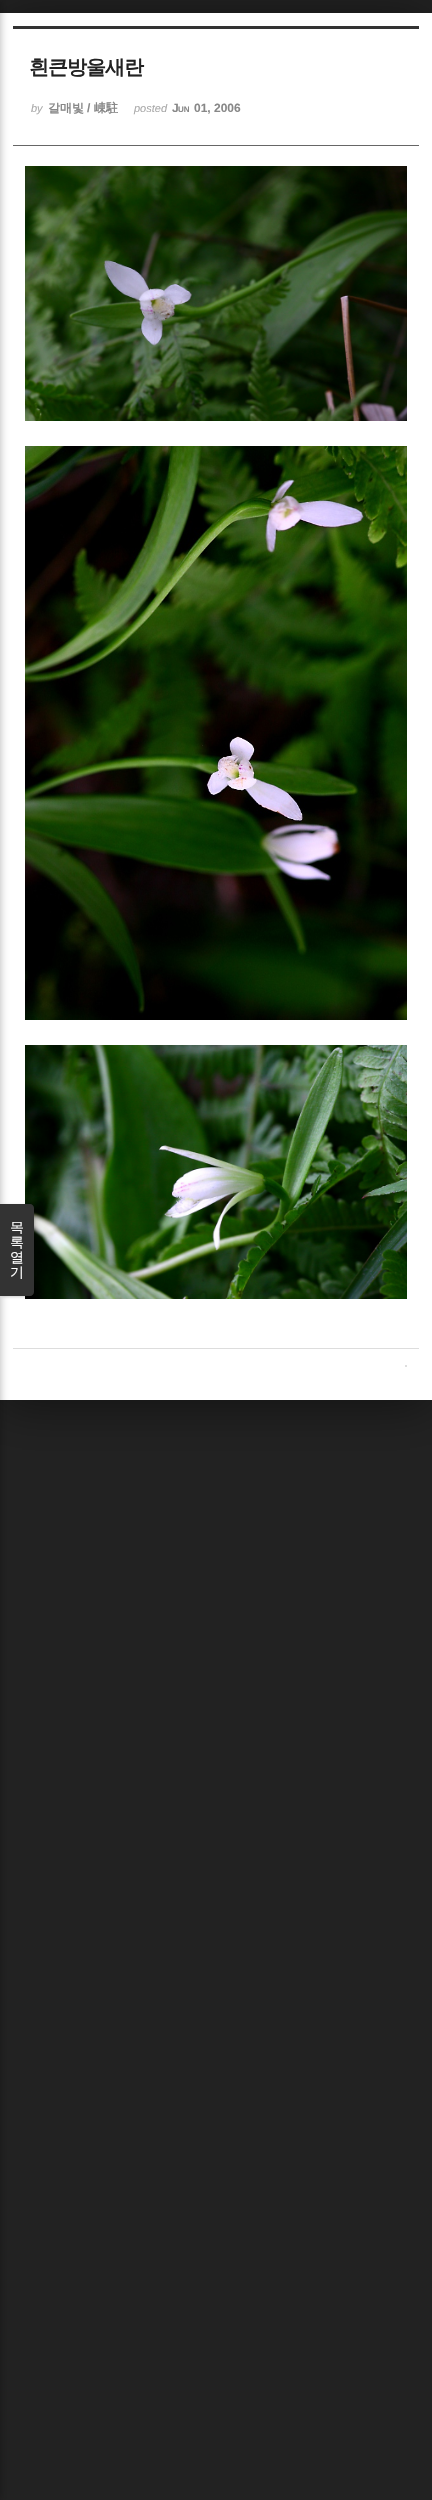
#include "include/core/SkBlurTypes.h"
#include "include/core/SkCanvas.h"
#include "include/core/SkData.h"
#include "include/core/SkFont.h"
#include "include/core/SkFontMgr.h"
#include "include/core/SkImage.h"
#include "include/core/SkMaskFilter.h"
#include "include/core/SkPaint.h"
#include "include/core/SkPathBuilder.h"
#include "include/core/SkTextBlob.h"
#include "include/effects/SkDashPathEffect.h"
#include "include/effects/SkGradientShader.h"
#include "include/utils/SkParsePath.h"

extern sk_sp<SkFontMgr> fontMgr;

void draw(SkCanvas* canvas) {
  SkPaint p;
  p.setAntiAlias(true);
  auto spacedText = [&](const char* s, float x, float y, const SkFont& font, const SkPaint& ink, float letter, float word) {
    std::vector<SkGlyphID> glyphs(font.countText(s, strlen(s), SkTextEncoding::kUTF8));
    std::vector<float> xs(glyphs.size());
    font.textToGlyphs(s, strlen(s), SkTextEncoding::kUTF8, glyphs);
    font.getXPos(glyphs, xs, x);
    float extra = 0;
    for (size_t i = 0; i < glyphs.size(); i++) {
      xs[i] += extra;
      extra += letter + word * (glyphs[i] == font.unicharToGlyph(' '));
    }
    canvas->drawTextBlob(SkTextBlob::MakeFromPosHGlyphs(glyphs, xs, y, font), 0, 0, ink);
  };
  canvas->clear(SkColorSetRGB(34, 34, 34));
  p.setColor(SkColorSetARGB(128, 0, 0, 0));
  p.setMaskFilter(SkMaskFilter::MakeBlur(kNormal_SkBlurStyle, 24));
  canvas->drawRect(SkRect::MakeLTRB(0, 17, 432, 1404), p);
  p.setMaskFilter(nullptr);
  p.setColor(SK_ColorWHITE);
  canvas->drawRect(SkRect::MakeLTRB(0, 13, 432, 1400), p);
  p.setColor(SkColorSetRGB(51, 51, 51));
  canvas->drawRect(SkRect::MakeLTRB(13, 26, 419, 29), p);
  p.setColor(SkColorSetRGB(102, 102, 102));
  canvas->drawRect(SkRect::MakeLTRB(13, 145, 419, 146), p);
  canvas->drawImageRect(SkImages::DeferredFromEncodedData(SkData::MakeFromFileName("images/1.png")), SkRect::MakeLTRB(25, 166, 407, 421), SkSamplingOptions());
  canvas->drawImageRect(SkImages::DeferredFromEncodedData(SkData::MakeFromFileName("images/2.png")), SkRect::MakeLTRB(25, 446, 407, 1020), SkSamplingOptions());
  canvas->drawImageRect(SkImages::DeferredFromEncodedData(SkData::MakeFromFileName("images/3.png")), SkRect::MakeLTRB(25, 1045, 407, 1299), SkSamplingOptions());
  p.setColor(SkColorSetRGB(221, 221, 221));
  canvas->drawRect(SkRect::MakeLTRB(13, 1348, 419, 1349), p);
  p.setColor(SkColorSetRGB(211, 211, 211));
  canvas->drawCircle(406, 1366, 1, p);
  p.setColor(SkColorSetARGB(77, 0, 0, 0));
  p.setMaskFilter(SkMaskFilter::MakeBlur(kNormal_SkBlurStyle, 4));
  canvas->drawRect(SkRect::MakeLTRB(-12, 0, 0, 2500), p);
  p.setMaskFilter(nullptr);
  p.setColor(SkColorSetARGB(51, 0, 0, 0));
  p.setMaskFilter(SkMaskFilter::MakeBlur(kNormal_SkBlurStyle, 1.5f));
  canvas->drawRoundRect(SkRect::MakeLTRB(1, 1205, 35, 1297), 4, 4, p);
  p.setMaskFilter(nullptr);
  p.setColor(SkColorSetRGB(51, 51, 51));
  canvas->drawPath(SkPathBuilder().moveTo(0, 1204).lineTo(30, 1204).cubicTo(32, 1204, 34, 1206, 34, 1208).lineTo(34, 1292).cubicTo(34, 1294, 32, 1296, 30, 1296).lineTo(0, 1296).close().detach(), p);
  SkFont font1(fontMgr->matchFamilyStyle("WenQuanYi Zen Hei", SkFontStyle::Bold()), 20);
  font1.setSubpixel(true);
  p.setColor(SkColorSetRGB(34, 34, 34));
  spacedText("흰큰방울새란", 29, 74, font1, p, -1, 0);
  SkFont font2(fontMgr->matchFamilyStyle("Liberation Sans", SkFontStyle::Italic()), 11);
  font2.setSubpixel(true);
  p.setColor(SkColorSetRGB(170, 170, 170));
  canvas->drawString("by", 31, 112, font2, p);
  SkFont font3(fontMgr->matchFamilyStyle("WenQuanYi Zen Hei", SkFontStyle::Bold()), 12);
  font3.setSubpixel(true);
  p.setColor(SkColorSetRGB(136, 136, 136));
  canvas->drawString("갈매빛", 48, 112, font3, p);
  SkFont font4(fontMgr->matchFamilyStyle("Liberation Sans", SkFontStyle::Bold()), 12);
  font4.setSubpixel(true);
  canvas->drawString("/", 87, 112, font4, p);
  canvas->drawString("崠駐", 94, 112, font3, p);
  p.setColor(SkColorSetRGB(170, 170, 170));
  canvas->drawString("posted", 134, 112, font2, p);
  p.setColor(SkColorSetRGB(136, 136, 136));
  canvas->drawString("J", 172, 112, font4, p);
  SkFont font5(fontMgr->matchFamilyStyle("Liberation Sans", SkFontStyle::Bold()), 8);
  font5.setSubpixel(true);
  canvas->drawString("UN", 178, 112, font5, p);
  canvas->drawString("01, 2006", 194, 112, font4, p);
  SkFont font6(fontMgr->matchFamilyStyle("WenQuanYi Zen Hei", SkFontStyle(500, SkFontStyle::kNormal_Width, SkFontStyle::kUpright_Slant)), 14);
  font6.setSubpixel(true);
  p.setColor(SK_ColorWHITE);
  canvas->drawString("목", 10, 1232, font6, p);
  canvas->drawString("록", 10, 1247, font6, p);
  canvas->drawString("열", 10, 1262, font6, p);
  canvas->drawString("기", 10, 1277, font6, p);
}
